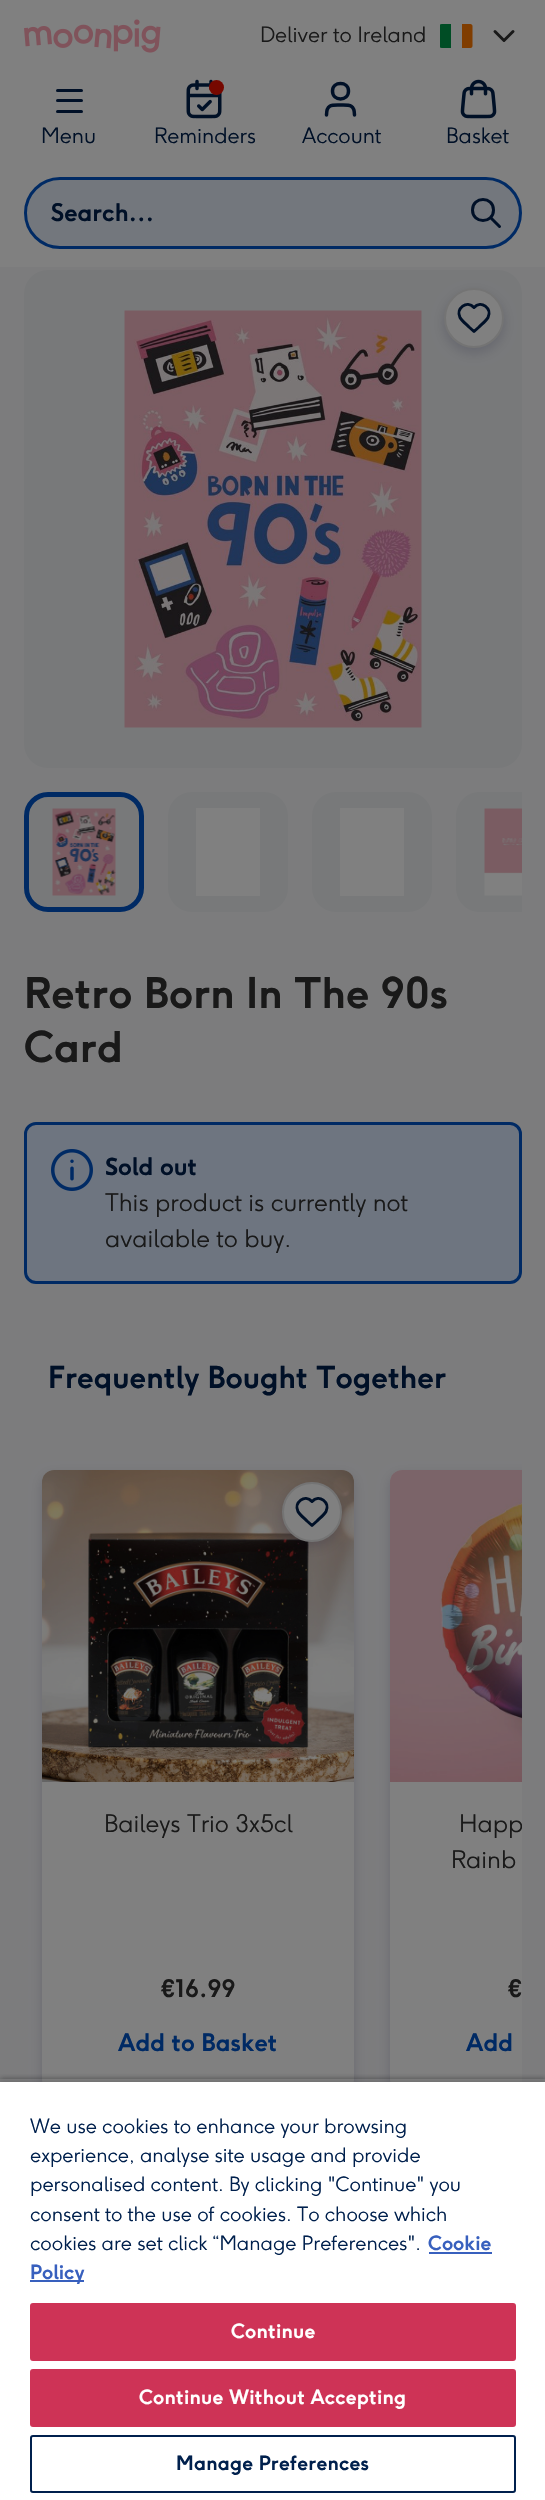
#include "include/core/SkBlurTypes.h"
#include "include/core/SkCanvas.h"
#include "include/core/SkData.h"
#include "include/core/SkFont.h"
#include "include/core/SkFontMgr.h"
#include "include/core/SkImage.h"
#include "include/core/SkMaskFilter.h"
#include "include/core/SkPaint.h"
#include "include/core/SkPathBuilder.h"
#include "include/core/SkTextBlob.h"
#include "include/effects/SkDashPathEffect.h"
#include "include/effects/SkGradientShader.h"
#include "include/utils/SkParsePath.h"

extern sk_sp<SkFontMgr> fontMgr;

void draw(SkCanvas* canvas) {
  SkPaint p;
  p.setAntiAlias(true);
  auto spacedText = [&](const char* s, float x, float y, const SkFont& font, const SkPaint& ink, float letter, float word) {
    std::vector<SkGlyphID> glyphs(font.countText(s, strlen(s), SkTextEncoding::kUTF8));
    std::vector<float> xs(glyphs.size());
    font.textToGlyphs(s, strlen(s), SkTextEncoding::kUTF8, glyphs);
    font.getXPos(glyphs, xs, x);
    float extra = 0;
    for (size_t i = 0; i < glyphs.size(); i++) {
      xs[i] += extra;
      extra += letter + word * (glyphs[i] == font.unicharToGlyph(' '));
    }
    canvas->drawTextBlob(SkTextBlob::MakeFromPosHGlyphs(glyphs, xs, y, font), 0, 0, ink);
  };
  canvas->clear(SkColorSetRGB(124, 124, 125));
  p.setColor(SkColorSetRGB(128, 128, 128));
  canvas->drawRect(SkRect::MakeLTRB(0, 0, 545, 267), p);
  canvas->drawImageRect(SkImages::DeferredFromEncodedData(SkData::MakeFromFileName("images/1.png")), SkRect::MakeLTRB(24, 19, 161, 53), SkSamplingOptions());
  canvas->save();
  canvas->clipRect(SkRect::MakeLTRB(438, 24, 474, 48));
  p.setColor(SkColorSetRGB(0, 77, 37));
  canvas->drawPath(SkPathBuilder().moveTo(451, 48).cubicTo(449, 48, 441, 48.5f, 440, 47.5f).lineTo(440, 24.5f).cubicTo(441, 23.5f, 449, 24, 451, 24).close().detach(), p);
  canvas->restore();
  p.setColor(SkColorSetRGB(128, 61, 0));
  canvas->drawPath(SkPathBuilder().moveTo(462, 24).lineTo(462, 48).lineTo(470.5f, 48).cubicTo(471.5f, 48, 472.5f, 47, 472.5f, 46).lineTo(472.5f, 26).cubicTo(472.5f, 25, 471.5f, 24, 470.5f, 24).close().detach(), p);
  p.setStyle(SkPaint::kStroke_Style);
  p.setStrokeWidth(3);
  p.setStrokeCap(SkPaint::kRound_Cap);
  p.setStrokeJoin(SkPaint::kRound_Join);
  p.setColor(SkColorSetRGB(25, 25, 25));
  canvas->drawPath(SkPathBuilder().moveTo(495, 31.5f).lineTo(504, 40.5f).lineTo(513, 31.5f).detach(), p);
  p.setStyle(SkPaint::kFill_Style);
  p.setColor(SkColorSetRGB(0, 16, 39));
  canvas->drawRoundRect(SkRect::MakeLTRB(56, 89, 83, 92), 1.5f, 1.5f, p);
  canvas->drawRoundRect(SkRect::MakeLTRB(56, 99, 83, 102), 1.5f, 1.5f, p);
  canvas->drawRoundRect(SkRect::MakeLTRB(56, 110, 83, 113), 1.5f, 1.5f, p);
  canvas->drawImageRect(SkImages::DeferredFromEncodedData(SkData::MakeFromFileName("images/2.png")), SkRect::MakeLTRB(186, 79, 222, 119), SkSamplingOptions());
  p.setColor(SkColorSetRGB(118, 8, 0));
  canvas->drawCircle(216.5f, 87.5f, 7.5f, p);
  p.setStyle(SkPaint::kStroke_Style);
  p.setStrokeWidth(3.5f);
  p.setColor(SkColorSetRGB(0, 16, 39));
  canvas->drawPath(SkPathBuilder().moveTo(354.5f, 115).cubicTo(354.5f, 104, 349, 105, 340.5f, 105).cubicTo(332, 105, 326.5f, 104, 326.5f, 115).moveTo(348.5f, 91).cubicTo(348.5f, 101.5f, 332.5f, 101.5f, 332.5f, 91).cubicTo(332.5f, 81, 348.5f, 81, 348.5f, 91).detach(), p);
  canvas->drawImageRect(SkImages::DeferredFromEncodedData(SkData::MakeFromFileName("images/3.png")), SkRect::MakeLTRB(460, 79, 497, 119), SkSamplingOptions());
  p.setStyle(SkPaint::kFill_Style);
  p.setColor(SkColorSetRGB(115, 119, 125));
  canvas->drawRoundRect(SkRect::MakeLTRB(25.5f, 178.5f, 520.5f, 247.5f), 34.5f, 34.5f, p);
  p.setStyle(SkPaint::kStroke_Style);
  p.setStrokeWidth(3);
  p.setStrokeCap(SkPaint::kButt_Cap);
  p.setStrokeJoin(SkPaint::kMiter_Join);
  p.setColor(SkColorSetRGB(0, 42, 100));
  canvas->drawRoundRect(SkRect::MakeLTRB(25.5f, 178.5f, 520.5f, 247.5f), 34.5f, 34.5f, p);
  p.setStrokeCap(SkPaint::kRound_Cap);
  p.setStrokeJoin(SkPaint::kRound_Join);
  p.setColor(SkColorSetRGB(0, 16, 39));
  canvas->drawPath(SkPathBuilder().moveTo(499.5f, 226.5f).lineTo(490.5f, 217.5f).moveTo(493.5f, 210).cubicTo(493.5f, 224, 472.5f, 224, 472.5f, 210).cubicTo(472.5f, 196, 493.5f, 196, 493.5f, 210).detach(), p);
  p.setStyle(SkPaint::kFill_Style);
  p.setColor(SkColorSetRGB(120, 121, 122));
  canvas->drawRoundRect(SkRect::MakeLTRB(24, 270, 522, 768), 24, 24, p);
  canvas->drawImageRect(SkImages::DeferredFromEncodedData(SkData::MakeFromFileName("images/4.png")), SkRect::MakeLTRB(124, 310, 422, 728), SkSamplingOptions());
  p.setColor(SkColorSetARGB(38, 0, 2, 39));
  p.setMaskFilter(SkMaskFilter::MakeBlur(kNormal_SkBlurStyle, 6));
  canvas->drawRoundRect(SkRect::MakeLTRB(444, 293, 504, 353), 30, 30, p);
  p.setMaskFilter(nullptr);
  p.setColor(SkColorSetRGB(128, 128, 128));
  canvas->drawCircle(474, 318, 29, p);
  p.setStyle(SkPaint::kStroke_Style);
  p.setStrokeWidth(2);
  p.setStrokeCap(SkPaint::kButt_Cap);
  p.setStrokeJoin(SkPaint::kMiter_Join);
  p.setColor(SkColorSetRGB(116, 116, 116));
  canvas->drawCircle(474, 318, 29, p);
  p.setStrokeWidth(3);
  p.setStrokeCap(SkPaint::kRound_Cap);
  p.setStrokeJoin(SkPaint::kRound_Join);
  p.setColor(SkColorSetRGB(0, 16, 39));
  canvas->drawPath(SkPathBuilder().moveTo(474, 307.5f).cubicTo(467, 299.5f, 455.5f, 308.5f, 460, 317.5f).cubicTo(462, 321, 466, 324, 469, 327).lineTo(474, 331.5f).lineTo(479, 327).cubicTo(482, 324, 486, 321, 488, 317.5f).cubicTo(492.5f, 308.5f, 481, 299.5f, 474, 307.5f).detach(), p);
  p.setStyle(SkPaint::kFill_Style);
  p.setColor(SkColorSetRGB(120, 121, 122));
  canvas->drawRoundRect(SkRect::MakeLTRB(26.5f, 794.5f, 141.5f, 909.5f), 21.5f, 21.5f, p);
  p.setStyle(SkPaint::kStroke_Style);
  p.setStrokeWidth(5);
  p.setStrokeCap(SkPaint::kButt_Cap);
  p.setStrokeJoin(SkPaint::kMiter_Join);
  p.setColor(SkColorSetRGB(0, 42, 100));
  canvas->drawRoundRect(SkRect::MakeLTRB(26.5f, 794.5f, 141.5f, 909.5f), 21.5f, 21.5f, p);
  canvas->drawImageRect(SkImages::DeferredFromEncodedData(SkData::MakeFromFileName("images/5.png")), SkRect::MakeLTRB(52, 808, 116, 896), SkSamplingOptions());
  p.setStyle(SkPaint::kFill_Style);
  p.setColor(SkColorSetRGB(120, 121, 122));
  canvas->drawRoundRect(SkRect::MakeLTRB(168, 792, 288, 912), 24, 24, p);
  p.setColor(SkColorSetRGB(128, 128, 128));
  canvas->drawRect(SkRect::MakeLTRB(196, 808, 260, 896), p);
  p.setColor(SkColorSetRGB(120, 121, 122));
  canvas->drawRoundRect(SkRect::MakeLTRB(312, 792, 432, 912), 24, 24, p);
  p.setColor(SkColorSetRGB(128, 128, 128));
  canvas->drawRect(SkRect::MakeLTRB(340, 808, 404, 896), p);
  p.setColor(SkColorSetRGB(120, 121, 122));
  canvas->drawPath(SkPathBuilder().moveTo(480, 792).lineTo(522, 792).lineTo(522, 912).lineTo(480, 912).cubicTo(466.5f, 912, 456, 901.5f, 456, 888).lineTo(456, 816).cubicTo(456, 802.5f, 466.5f, 792, 480, 792).close().detach(), p);
  canvas->drawImageRect(SkImages::DeferredFromEncodedData(SkData::MakeFromFileName("images/6.png")), SkRect::MakeLTRB(484, 808, 522, 896), SkSamplingOptions());
  p.setColor(SkColorSetRGB(110, 117, 128));
  canvas->drawRoundRect(SkRect::MakeLTRB(25.5f, 1123.5f, 520.5f, 1282.5f), 10.5f, 10.5f, p);
  p.setStyle(SkPaint::kStroke_Style);
  p.setStrokeWidth(3);
  p.setColor(SkColorSetRGB(0, 42, 100));
  canvas->drawRoundRect(SkRect::MakeLTRB(25.5f, 1123.5f, 520.5f, 1282.5f), 10.5f, 10.5f, p);
  canvas->drawImageRect(SkImages::DeferredFromEncodedData(SkData::MakeFromFileName("images/7.png")), SkRect::MakeLTRB(51, 1149, 93, 1191), SkSamplingOptions());
  p.setStyle(SkPaint::kFill_Style);
  p.setColor(SkColorSetARGB(38, 0, 2, 39));
  p.setMaskFilter(SkMaskFilter::MakeBlur(kNormal_SkBlurStyle, 6));
  canvas->drawRoundRect(SkRect::MakeLTRB(42, 1475, 354, 2096), 12, 12, p);
  p.setMaskFilter(nullptr);
  p.setColor(SkColorSetRGB(128, 128, 128));
  canvas->drawRoundRect(SkRect::MakeLTRB(42, 1470, 354, 2091), 12, 12, p);
  canvas->drawImageRect(SkImages::DeferredFromEncodedData(SkData::MakeFromFileName("images/8.png")), SkRect::MakeLTRB(42, 1470, 354, 1782), SkSamplingOptions());
  p.setColor(SkColorSetARGB(38, 0, 2, 39));
  p.setMaskFilter(SkMaskFilter::MakeBlur(kNormal_SkBlurStyle, 6));
  canvas->drawRoundRect(SkRect::MakeLTRB(282, 1487, 342, 1547), 30, 30, p);
  p.setMaskFilter(nullptr);
  p.setColor(SkColorSetRGB(128, 128, 128));
  canvas->drawCircle(312, 1512, 29, p);
  p.setStyle(SkPaint::kStroke_Style);
  p.setStrokeWidth(2);
  p.setColor(SkColorSetRGB(116, 116, 116));
  canvas->drawCircle(312, 1512, 29, p);
  p.setStrokeWidth(3);
  p.setStrokeCap(SkPaint::kRound_Cap);
  p.setStrokeJoin(SkPaint::kRound_Join);
  p.setColor(SkColorSetRGB(0, 16, 39));
  canvas->drawPath(SkPathBuilder().moveTo(312, 1501.5f).cubicTo(305, 1493.5f, 293.5f, 1502.5f, 298, 1511.5f).cubicTo(300, 1515, 304, 1518, 307, 1521).lineTo(312, 1525.5f).lineTo(317, 1521).cubicTo(320, 1518, 324, 1515, 326, 1511.5f).cubicTo(330.5f, 1502.5f, 319, 1493.5f, 312, 1501.5f).detach(), p);
  canvas->save();
  canvas->clipRect(SkRect::MakeLTRB(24, 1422, 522, 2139));
  p.setStyle(SkPaint::kFill_Style);
  p.setColor(SkColorSetARGB(38, 0, 2, 39));
  p.setMaskFilter(SkMaskFilter::MakeBlur(kNormal_SkBlurStyle, 6));
  canvas->drawRoundRect(SkRect::MakeLTRB(390, 1475, 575, 2096), 12, 12, p);
  p.setMaskFilter(nullptr);
  canvas->restore();
  p.setColor(SkColorSetRGB(128, 128, 128));
  canvas->drawPath(SkPathBuilder().moveTo(402, 1470).lineTo(522, 1470).lineTo(522, 2091).lineTo(402, 2091).cubicTo(395.5f, 2091, 390, 2085.5f, 390, 2079).lineTo(390, 1482).cubicTo(390, 1475.5f, 395.5f, 1470, 402, 1470).close().detach(), p);
  canvas->drawImageRect(SkImages::DeferredFromEncodedData(SkData::MakeFromFileName("images/9.png")), SkRect::MakeLTRB(390, 1470, 522, 1782), SkSamplingOptions());
  canvas->save();
  canvas->clipRect(SkRect::MakeLTRB(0, 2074, 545, 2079));
  p.setColor(SkColorSetARGB(89, 0, 0, 0));
  p.setMaskFilter(SkMaskFilter::MakeBlur(kNormal_SkBlurStyle, 3));
  canvas->drawRect(SkRect::MakeLTRB(0, 2079, 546, 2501), p);
  p.setMaskFilter(nullptr);
  canvas->restore();
  p.setColor(SkColorSetARGB(51, 0, 0, 0));
  p.setMaskFilter(SkMaskFilter::MakeBlur(kNormal_SkBlurStyle, 3));
  canvas->drawRect(SkRect::MakeLTRB(0, 2082, 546, 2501), p);
  p.setMaskFilter(nullptr);
  p.setColor(SK_ColorWHITE);
  canvas->drawRect(SkRect::MakeLTRB(0, 2082, 545, 2500), p);
  p.setColor(SkColorSetRGB(56, 96, 190));
  canvas->drawRect(SkRect::MakeLTRB(429, 2252, 492, 2254), p);
  canvas->drawRect(SkRect::MakeLTRB(30, 2280, 84, 2282), p);
  p.setColor(SkColorSetRGB(206, 51, 86));
  canvas->drawRoundRect(SkRect::MakeLTRB(31, 2304, 515, 2360), 2, 2, p);
  p.setStyle(SkPaint::kStroke_Style);
  p.setStrokeWidth(2);
  p.setStrokeCap(SkPaint::kButt_Cap);
  p.setStrokeJoin(SkPaint::kMiter_Join);
  canvas->drawRoundRect(SkRect::MakeLTRB(31, 2304, 515, 2360), 2, 2, p);
  p.setStyle(SkPaint::kFill_Style);
  canvas->drawRoundRect(SkRect::MakeLTRB(31, 2370, 515, 2426), 2, 2, p);
  p.setStyle(SkPaint::kStroke_Style);
  canvas->drawRoundRect(SkRect::MakeLTRB(31, 2370, 515, 2426), 2, 2, p);
  p.setColor(SkColorSetRGB(0, 32, 77));
  canvas->drawRoundRect(SkRect::MakeLTRB(31, 2436, 515, 2492), 2, 2, p);
  SkFont font1(fontMgr->matchFamilyStyle("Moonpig", SkFontStyle(300, SkFontStyle::kNormal_Width, SkFontStyle::kUpright_Slant)), 21);
  font1.setSubpixel(true);
  p.setStyle(SkPaint::kFill_Style);
  p.setColor(SkColorSetRGB(25, 25, 25));
  canvas->drawString("Deliver to Ireland", 260, 42, font1, p);
  p.setColor(SkColorSetRGB(0, 16, 39));
  canvas->drawString("Menu", 41, 143, font1, p);
  canvas->drawString("Reminders", 154, 143, font1, p);
  canvas->drawString("Account", 302, 143, font1, p);
  canvas->drawString("Basket", 446, 143, font1, p);
  SkFont font2(fontMgr->matchFamilyStyle("Moonpig", SkFontStyle::Bold()), 24);
  font2.setSubpixel(true);
  canvas->drawString("Search…", 51, 221, font2, p);
  SkFont font3(fontMgr->matchFamilyStyle("Moonpig", SkFontStyle::Bold()), 42);
  font3.setSubpixel(true);
  p.setColor(SkColorSetRGB(25, 25, 25));
  canvas->drawString("Retro Born In The 90s", 24, 1008, font3, p);
  canvas->drawString("Card", 24, 1062, font3, p);
  SkFont font4(fontMgr->matchFamilyStyle("Noto Sans", SkFontStyle::Bold()), 24);
  font4.setSubpixel(true);
  p.setColor(SkColorSetRGB(0, 16, 39));
  canvas->drawString("S", 105, 1175, font4, p);
  canvas->drawString("old out", 118, 1175, font2, p);
  SkFont font5(fontMgr->matchFamilyStyle("Moonpig", SkFontStyle(300, SkFontStyle::kNormal_Width, SkFontStyle::kUpright_Slant)), 24);
  font5.setSubpixel(true);
  p.setColor(SkColorSetRGB(25, 25, 25));
  canvas->drawString("This product is currently not", 105, 1211, font5, p);
  canvas->drawString("available to buy.", 105, 1247, font5, p);
  SkFont font6(fontMgr->matchFamilyStyle("Moonpig", SkFontStyle::Bold()), 30);
  font6.setSubpixel(true);
  p.setColor(SkColorSetRGB(0, 16, 39));
  canvas->drawString("Frequently Bought Together", 48, 1388, font6, p);
  p.setColor(SkColorSetRGB(25, 25, 25));
  canvas->drawString("Baileys Trio 3x5cl", 104, 1832, font5, p);
  canvas->drawString("€16.99", 161, 1997, font2, p);
  p.setColor(SkColorSetRGB(0, 42, 100));
  canvas->drawString("Add to Basket", 118, 2051, font2, p);
  canvas->save();
  canvas->clipRect(SkRect::MakeLTRB(390, 1806, 522, 1878));
  p.setColor(SkColorSetRGB(25, 25, 25));
  canvas->drawString("Happ", 459, 1832, font5, p);
  canvas->restore();
  canvas->drawString("Rainb", 451, 1868, font5, p);
  canvas->drawString("€", 508, 1997, font2, p);
  p.setColor(SkColorSetRGB(0, 42, 100));
  canvas->drawString("Add", 466, 2051, font2, p);
  SkFont font7(fontMgr->matchFamilyStyle("Moonpig", SkFontStyle(300, SkFontStyle::kNormal_Width, SkFontStyle::kUpright_Slant)), 19.5f);
  font7.setSubpixel(true);
  p.setColor(SkColorSetRGB(0, 32, 77));
  canvas->drawString("We use cookies to enhance your browsing", 30, 2133, font7, p);
  canvas->drawString("experience, analyse site usage and provide", 30, 2162, font7, p);
  canvas->drawString("personalised content. By clicking \"Continue\" you", 30, 2191, font7, p);
  canvas->drawString("consent to the use of cookies. To choose which", 30, 2221, font7, p);
  canvas->drawString("cookies are set click “Manage Preferences\".", 30, 2250, font7, p);
  SkFont font8(fontMgr->matchFamilyStyle("Moonpig", SkFontStyle::Bold()), 19.5f);
  font8.setSubpixel(true);
  p.setColor(SkColorSetRGB(56, 96, 190));
  canvas->drawString("Cookie", 428, 2250, font8, p);
  canvas->drawString("Policy", 30, 2279, font8, p);
  p.setColor(SK_ColorWHITE);
  spacedText("Continue", 231, 2338, font8, p, 0.2f, 0);
  spacedText("Continue Without Accepting", 139, 2404, font8, p, 0.2f, 0);
  p.setColor(SkColorSetRGB(0, 32, 77));
  spacedText("Manage Preferences", 176, 2470, font8, p, 0.2f, 0);
}
